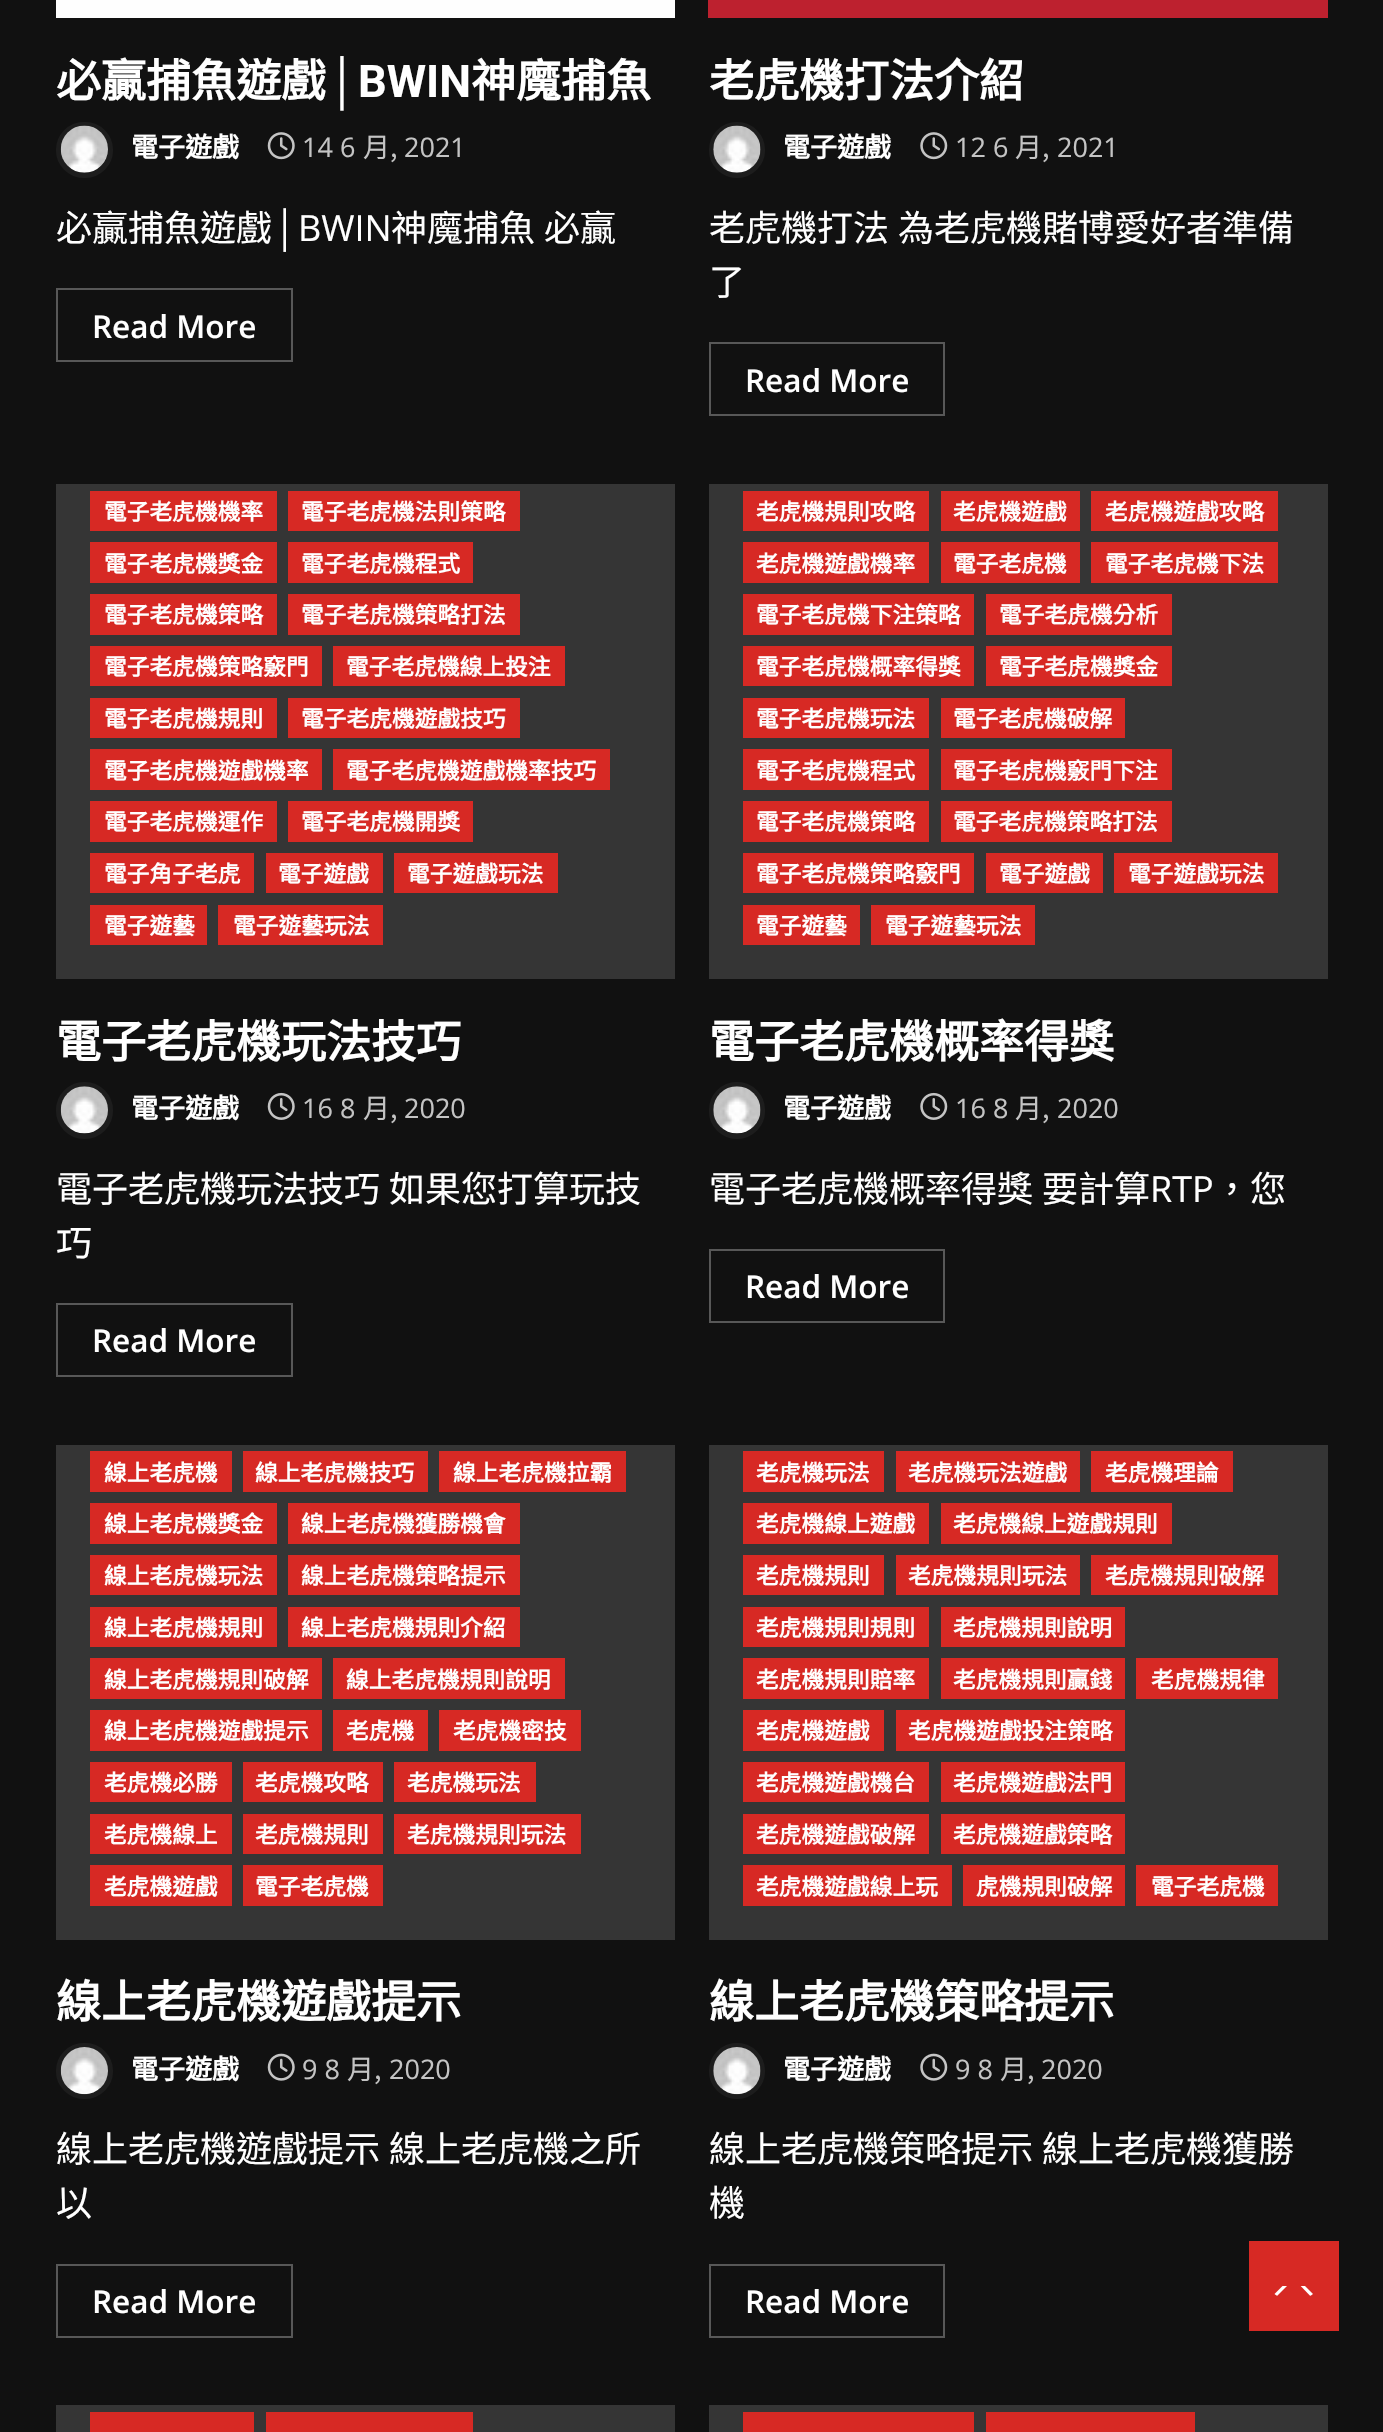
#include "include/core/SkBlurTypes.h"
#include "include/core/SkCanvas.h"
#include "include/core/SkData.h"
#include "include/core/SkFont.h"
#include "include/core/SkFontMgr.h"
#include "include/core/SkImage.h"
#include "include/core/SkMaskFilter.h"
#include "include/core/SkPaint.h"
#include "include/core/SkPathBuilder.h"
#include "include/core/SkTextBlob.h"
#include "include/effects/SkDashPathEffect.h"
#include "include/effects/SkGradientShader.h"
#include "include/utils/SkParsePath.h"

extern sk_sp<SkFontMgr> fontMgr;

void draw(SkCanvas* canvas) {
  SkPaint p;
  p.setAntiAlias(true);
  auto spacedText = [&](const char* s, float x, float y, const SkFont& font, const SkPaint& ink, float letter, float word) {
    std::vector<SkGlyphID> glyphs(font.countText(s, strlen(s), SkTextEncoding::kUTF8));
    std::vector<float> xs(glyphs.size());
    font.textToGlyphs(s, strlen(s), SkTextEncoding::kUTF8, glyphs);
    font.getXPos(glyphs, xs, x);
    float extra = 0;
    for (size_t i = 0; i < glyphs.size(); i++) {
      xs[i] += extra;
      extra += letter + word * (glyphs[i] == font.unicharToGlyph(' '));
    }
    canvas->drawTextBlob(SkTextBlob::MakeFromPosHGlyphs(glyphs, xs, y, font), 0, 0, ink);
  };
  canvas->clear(SkColorSetRGB(17, 17, 17));
  p.setColor(SkColorSetRGB(254, 254, 254));
  canvas->drawRect(SkRect::MakeLTRB(56, 0, 675, 18), p);
  p.setStyle(SkPaint::kStroke_Style);
  p.setStrokeWidth(5);
  p.setColor(SkColorSetRGB(29, 29, 29));
  canvas->drawRoundRect(SkRect::MakeLTRB(58.5f, 124.5f, 110.5f, 175.5f), 25.5f, 25.5f, p);
  canvas->drawImageRect(SkImages::DeferredFromEncodedData(SkData::MakeFromFileName("images/1.png")), SkRect::MakeLTRB(60, 125, 108, 173), SkSamplingOptions());
  canvas->drawImageRect(SkImages::DeferredFromEncodedData(SkData::MakeFromFileName("images/2.png")), SkRect::MakeLTRB(267, 132, 295, 160), SkSamplingOptions());
  p.setStrokeWidth(2);
  p.setColor(SkColorSetRGB(88, 88, 88));
  canvas->drawRect(SkRect::MakeLTRB(57, 289, 292, 361), p);
  p.setStyle(SkPaint::kFill_Style);
  p.setColor(SkColorSetRGB(189, 33, 47));
  canvas->drawRect(SkRect::MakeLTRB(708, 0, 1328, 18), p);
  p.setStyle(SkPaint::kStroke_Style);
  p.setStrokeWidth(5);
  p.setColor(SkColorSetRGB(29, 29, 29));
  canvas->drawCircle(737, 150, 25.5f, p);
  canvas->drawImageRect(SkImages::DeferredFromEncodedData(SkData::MakeFromFileName("images/3.png")), SkRect::MakeLTRB(713, 125, 761, 173), SkSamplingOptions());
  canvas->drawImageRect(SkImages::DeferredFromEncodedData(SkData::MakeFromFileName("images/4.png")), SkRect::MakeLTRB(920, 132, 948, 160), SkSamplingOptions());
  p.setStrokeWidth(2);
  p.setColor(SkColorSetRGB(88, 88, 88));
  canvas->drawRect(SkRect::MakeLTRB(710, 343, 944, 415), p);
  p.setStyle(SkPaint::kFill_Style);
  p.setColor(SkColorSetRGB(53, 53, 53));
  canvas->drawRect(SkRect::MakeLTRB(56, 484, 675, 979), p);
  p.setColor(SkColorSetRGB(215, 41, 36));
  canvas->drawRect(SkRect::MakeLTRB(90, 491, 277, 531), p);
  canvas->drawRect(SkRect::MakeLTRB(288, 491, 520, 531), p);
  canvas->drawRect(SkRect::MakeLTRB(90, 542, 277, 583), p);
  canvas->drawRect(SkRect::MakeLTRB(288, 542, 473, 583), p);
  canvas->drawRect(SkRect::MakeLTRB(90, 594, 277, 635), p);
  canvas->drawRect(SkRect::MakeLTRB(288, 594, 520, 635), p);
  canvas->drawRect(SkRect::MakeLTRB(90, 646, 322, 686), p);
  canvas->drawRect(SkRect::MakeLTRB(333, 646, 565, 686), p);
  canvas->drawRect(SkRect::MakeLTRB(90, 698, 277, 738), p);
  canvas->drawRect(SkRect::MakeLTRB(288, 698, 520, 738), p);
  canvas->drawRect(SkRect::MakeLTRB(90, 749, 322, 790), p);
  canvas->drawRect(SkRect::MakeLTRB(333, 749, 610, 790), p);
  canvas->drawRect(SkRect::MakeLTRB(90, 801, 277, 842), p);
  canvas->drawRect(SkRect::MakeLTRB(288, 801, 473, 842), p);
  canvas->drawRect(SkRect::MakeLTRB(90, 853, 254, 893), p);
  canvas->drawRect(SkRect::MakeLTRB(266, 853, 383, 893), p);
  canvas->drawRect(SkRect::MakeLTRB(394, 853, 558, 893), p);
  canvas->drawRect(SkRect::MakeLTRB(90, 905, 207, 945), p);
  canvas->drawRect(SkRect::MakeLTRB(218, 905, 383, 945), p);
  p.setStyle(SkPaint::kStroke_Style);
  p.setStrokeWidth(5);
  p.setColor(SkColorSetRGB(29, 29, 29));
  canvas->drawCircle(84.5f, 1110.5f, 26, p);
  canvas->drawImageRect(SkImages::DeferredFromEncodedData(SkData::MakeFromFileName("images/5.png")), SkRect::MakeLTRB(60, 1086, 108, 1134), SkSamplingOptions());
  canvas->drawImageRect(SkImages::DeferredFromEncodedData(SkData::MakeFromFileName("images/6.png")), SkRect::MakeLTRB(267, 1092, 295, 1120), SkSamplingOptions());
  p.setStrokeWidth(2);
  p.setColor(SkColorSetRGB(88, 88, 88));
  canvas->drawRect(SkRect::MakeLTRB(57, 1304, 292, 1376), p);
  p.setStyle(SkPaint::kFill_Style);
  p.setColor(SkColorSetRGB(53, 53, 53));
  canvas->drawRect(SkRect::MakeLTRB(709, 484, 1328, 979), p);
  p.setColor(SkColorSetRGB(215, 41, 36));
  canvas->drawRect(SkRect::MakeLTRB(743, 491, 929, 531), p);
  canvas->drawRect(SkRect::MakeLTRB(941, 491, 1080, 531), p);
  canvas->drawRect(SkRect::MakeLTRB(1091, 491, 1278, 531), p);
  canvas->drawRect(SkRect::MakeLTRB(743, 542, 929, 583), p);
  canvas->drawRect(SkRect::MakeLTRB(941, 542, 1080, 583), p);
  canvas->drawRect(SkRect::MakeLTRB(1091, 542, 1278, 583), p);
  canvas->drawRect(SkRect::MakeLTRB(743, 594, 974, 635), p);
  canvas->drawRect(SkRect::MakeLTRB(986, 594, 1172, 635), p);
  canvas->drawRect(SkRect::MakeLTRB(743, 646, 974, 686), p);
  canvas->drawRect(SkRect::MakeLTRB(986, 646, 1172, 686), p);
  canvas->drawRect(SkRect::MakeLTRB(743, 698, 929, 738), p);
  canvas->drawRect(SkRect::MakeLTRB(941, 698, 1125, 738), p);
  canvas->drawRect(SkRect::MakeLTRB(743, 749, 929, 790), p);
  canvas->drawRect(SkRect::MakeLTRB(941, 749, 1172, 790), p);
  canvas->drawRect(SkRect::MakeLTRB(743, 801, 929, 842), p);
  canvas->drawRect(SkRect::MakeLTRB(941, 801, 1172, 842), p);
  canvas->drawRect(SkRect::MakeLTRB(743, 853, 974, 893), p);
  canvas->drawRect(SkRect::MakeLTRB(986, 853, 1103, 893), p);
  canvas->drawRect(SkRect::MakeLTRB(1114, 853, 1278, 893), p);
  canvas->drawRect(SkRect::MakeLTRB(743, 905, 860, 945), p);
  canvas->drawRect(SkRect::MakeLTRB(871, 905, 1035, 945), p);
  p.setStyle(SkPaint::kStroke_Style);
  p.setStrokeWidth(5);
  p.setColor(SkColorSetRGB(29, 29, 29));
  canvas->drawRoundRect(SkRect::MakeLTRB(711.5f, 1084.5f, 762.5f, 1136.5f), 25.5f, 25.5f, p);
  canvas->drawImageRect(SkImages::DeferredFromEncodedData(SkData::MakeFromFileName("images/7.png")), SkRect::MakeLTRB(713, 1086, 761, 1134), SkSamplingOptions());
  canvas->drawImageRect(SkImages::DeferredFromEncodedData(SkData::MakeFromFileName("images/8.png")), SkRect::MakeLTRB(920, 1092, 948, 1120), SkSamplingOptions());
  p.setStrokeWidth(2);
  p.setColor(SkColorSetRGB(88, 88, 88));
  canvas->drawRect(SkRect::MakeLTRB(710, 1250, 944, 1322), p);
  p.setStyle(SkPaint::kFill_Style);
  p.setColor(SkColorSetRGB(53, 53, 53));
  canvas->drawRect(SkRect::MakeLTRB(56, 1445, 675, 1940), p);
  p.setColor(SkColorSetRGB(215, 41, 36));
  canvas->drawRect(SkRect::MakeLTRB(90, 1451, 232, 1492), p);
  canvas->drawRect(SkRect::MakeLTRB(243, 1451, 428, 1492), p);
  canvas->drawRect(SkRect::MakeLTRB(439, 1451, 626, 1492), p);
  canvas->drawRect(SkRect::MakeLTRB(90, 1503, 277, 1544), p);
  canvas->drawRect(SkRect::MakeLTRB(288, 1503, 520, 1544), p);
  canvas->drawRect(SkRect::MakeLTRB(90, 1555, 277, 1595), p);
  canvas->drawRect(SkRect::MakeLTRB(288, 1555, 520, 1595), p);
  canvas->drawRect(SkRect::MakeLTRB(90, 1607, 277, 1647), p);
  canvas->drawRect(SkRect::MakeLTRB(288, 1607, 520, 1647), p);
  canvas->drawRect(SkRect::MakeLTRB(90, 1658, 322, 1699), p);
  canvas->drawRect(SkRect::MakeLTRB(333, 1658, 565, 1699), p);
  canvas->drawRect(SkRect::MakeLTRB(90, 1710, 322, 1751), p);
  canvas->drawRect(SkRect::MakeLTRB(333, 1710, 428, 1751), p);
  canvas->drawRect(SkRect::MakeLTRB(439, 1710, 581, 1751), p);
  canvas->drawRect(SkRect::MakeLTRB(90, 1762, 232, 1802), p);
  canvas->drawRect(SkRect::MakeLTRB(243, 1762, 383, 1802), p);
  canvas->drawRect(SkRect::MakeLTRB(394, 1762, 536, 1802), p);
  canvas->drawRect(SkRect::MakeLTRB(90, 1814, 232, 1854), p);
  canvas->drawRect(SkRect::MakeLTRB(243, 1814, 383, 1854), p);
  canvas->drawRect(SkRect::MakeLTRB(394, 1814, 581, 1854), p);
  canvas->drawRect(SkRect::MakeLTRB(90, 1865, 232, 1906), p);
  canvas->drawRect(SkRect::MakeLTRB(243, 1865, 383, 1906), p);
  p.setStyle(SkPaint::kStroke_Style);
  p.setStrokeWidth(5);
  p.setColor(SkColorSetRGB(29, 29, 29));
  canvas->drawRoundRect(SkRect::MakeLTRB(58.5f, 2045.5f, 110.5f, 2096.5f), 25.5f, 25.5f, p);
  canvas->drawImageRect(SkImages::DeferredFromEncodedData(SkData::MakeFromFileName("images/9.png")), SkRect::MakeLTRB(60, 2047, 108, 2095), SkSamplingOptions());
  canvas->drawImageRect(SkImages::DeferredFromEncodedData(SkData::MakeFromFileName("images/10.png")), SkRect::MakeLTRB(267, 2053, 295, 2081), SkSamplingOptions());
  p.setStrokeWidth(2);
  p.setColor(SkColorSetRGB(88, 88, 88));
  canvas->drawRect(SkRect::MakeLTRB(57, 2265, 292, 2337), p);
  p.setStyle(SkPaint::kFill_Style);
  p.setColor(SkColorSetRGB(53, 53, 53));
  canvas->drawRect(SkRect::MakeLTRB(709, 1445, 1328, 1940), p);
  p.setColor(SkColorSetRGB(215, 41, 36));
  canvas->drawRect(SkRect::MakeLTRB(743, 1451, 884, 1492), p);
  canvas->drawRect(SkRect::MakeLTRB(896, 1451, 1080, 1492), p);
  canvas->drawRect(SkRect::MakeLTRB(1091, 1451, 1233, 1492), p);
  canvas->drawRect(SkRect::MakeLTRB(743, 1503, 929, 1544), p);
  canvas->drawRect(SkRect::MakeLTRB(941, 1503, 1172, 1544), p);
  canvas->drawRect(SkRect::MakeLTRB(743, 1555, 884, 1595), p);
  canvas->drawRect(SkRect::MakeLTRB(896, 1555, 1080, 1595), p);
  canvas->drawRect(SkRect::MakeLTRB(1091, 1555, 1278, 1595), p);
  canvas->drawRect(SkRect::MakeLTRB(743, 1607, 929, 1647), p);
  canvas->drawRect(SkRect::MakeLTRB(941, 1607, 1125, 1647), p);
  canvas->drawRect(SkRect::MakeLTRB(743, 1658, 929, 1699), p);
  canvas->drawRect(SkRect::MakeLTRB(941, 1658, 1125, 1699), p);
  canvas->drawRect(SkRect::MakeLTRB(1136, 1658, 1278, 1699), p);
  canvas->drawRect(SkRect::MakeLTRB(743, 1710, 884, 1751), p);
  canvas->drawRect(SkRect::MakeLTRB(896, 1710, 1125, 1751), p);
  canvas->drawRect(SkRect::MakeLTRB(743, 1762, 929, 1802), p);
  canvas->drawRect(SkRect::MakeLTRB(941, 1762, 1125, 1802), p);
  canvas->drawRect(SkRect::MakeLTRB(743, 1814, 929, 1854), p);
  canvas->drawRect(SkRect::MakeLTRB(941, 1814, 1125, 1854), p);
  canvas->drawRect(SkRect::MakeLTRB(743, 1865, 952, 1906), p);
  canvas->drawRect(SkRect::MakeLTRB(963, 1865, 1125, 1906), p);
  canvas->drawRect(SkRect::MakeLTRB(1136, 1865, 1278, 1906), p);
  p.setStyle(SkPaint::kStroke_Style);
  p.setStrokeWidth(5);
  p.setColor(SkColorSetRGB(29, 29, 29));
  canvas->drawCircle(737, 2071, 25.5f, p);
  canvas->drawImageRect(SkImages::DeferredFromEncodedData(SkData::MakeFromFileName("images/11.png")), SkRect::MakeLTRB(713, 2047, 761, 2095), SkSamplingOptions());
  canvas->drawImageRect(SkImages::DeferredFromEncodedData(SkData::MakeFromFileName("images/12.png")), SkRect::MakeLTRB(920, 2053, 948, 2081), SkSamplingOptions());
  p.setStrokeWidth(2);
  p.setColor(SkColorSetRGB(88, 88, 88));
  canvas->drawRect(SkRect::MakeLTRB(710, 2265, 944, 2337), p);
  p.setStyle(SkPaint::kFill_Style);
  p.setColor(SkColorSetRGB(53, 53, 53));
  canvas->drawRect(SkRect::MakeLTRB(56, 2405, 675, 2432), p);
  p.setColor(SkColorSetRGB(215, 41, 36));
  canvas->drawRect(SkRect::MakeLTRB(90, 2412, 254, 2432), p);
  canvas->drawRect(SkRect::MakeLTRB(266, 2412, 473, 2432), p);
  p.setColor(SkColorSetRGB(53, 53, 53));
  canvas->drawRect(SkRect::MakeLTRB(709, 2405, 1328, 2432), p);
  p.setColor(SkColorSetRGB(215, 41, 36));
  canvas->drawRect(SkRect::MakeLTRB(743, 2412, 974, 2432), p);
  canvas->drawRect(SkRect::MakeLTRB(986, 2412, 1195, 2432), p);
  canvas->drawRect(SkRect::MakeLTRB(1249, 2241, 1339, 2331), p);
  p.setColor(SK_ColorWHITE);
  canvas->drawPath(SkPathBuilder().moveTo(1313, 2294).cubicTo(1311, 2296, 1308, 2297, 1305, 2297).lineTo(1282, 2297).cubicTo(1279, 2297, 1276.5f, 2296, 1274.5f, 2294).lineTo(1282.5f, 2286).lineTo(1305, 2286).close().detach(), p);
  p.setColor(SkColorSetRGB(215, 41, 36));
  canvas->drawPath(SkPathBuilder().moveTo(1316, 2302).lineTo(1271, 2302).lineTo(1294, 2279).close().detach(), p);
  SkFont font1(fontMgr->matchFamilyStyle("Noto Sans CJK TC", SkFontStyle::Bold()), 45);
  font1.setSubpixel(true);
  p.setColor(SK_ColorWHITE);
  canvas->drawString("必贏捕魚遊戲", 56, 97, font1, p);
  SkFont font2(fontMgr->matchFamilyStyle("Liberation Serif", SkFontStyle::Bold()), 45);
  font2.setSubpixel(true);
  canvas->drawString("│", 326, 97, font2, p);
  SkFont font3(fontMgr->matchFamilyStyle("Roboto", SkFontStyle::Bold()), 45);
  font3.setSubpixel(true);
  canvas->drawString("BWIN", 358, 97, font3, p);
  canvas->drawString("神魔捕魚", 471, 97, font1, p);
  SkFont font4(fontMgr->matchFamilyStyle("Noto Sans CJK TC", SkFontStyle::Bold()), 27);
  font4.setSubpixel(true);
  canvas->drawString("電子遊戲", 131, 157, font4, p);
  SkFont font5(fontMgr->matchFamilyStyle("Open Sans", SkFontStyle::Normal()), 27);
  font5.setSubpixel(true);
  p.setColor(SkColorSetRGB(196, 196, 196));
  canvas->drawString("14 6", 302, 157, font5, p);
  SkFont font6(fontMgr->matchFamilyStyle("Noto Sans CJK TC", SkFontStyle::Normal()), 27);
  font6.setSubpixel(true);
  canvas->drawString("月,", 363, 157, font6, p);
  canvas->drawString("2021", 404, 157, font5, p);
  SkFont font7(fontMgr->matchFamilyStyle("Noto Sans CJK TC", SkFontStyle::Normal()), 36);
  font7.setSubpixel(true);
  p.setColor(SK_ColorWHITE);
  canvas->drawString("必贏捕魚遊戲", 56, 241, font7, p);
  SkFont font8(fontMgr->matchFamilyStyle("Liberation Serif", SkFontStyle::Normal()), 36);
  font8.setSubpixel(true);
  canvas->drawString("│", 272, 241, font8, p);
  SkFont font9(fontMgr->matchFamilyStyle("Open Sans", SkFontStyle::Normal()), 36);
  font9.setSubpixel(true);
  canvas->drawString("BWIN", 298, 241, font9, p);
  spacedText("神魔捕魚 必贏", 391, 241, font7, p, 0, 1);
  SkFont font10(fontMgr->matchFamilyStyle("Open Sans", SkFontStyle(600, SkFontStyle::kNormal_Width, SkFontStyle::kUpright_Slant)), 31.5f);
  font10.setSubpixel(true);
  canvas->drawString("Read More", 92, 338, font10, p);
  canvas->drawString("老虎機打法介紹", 709, 97, font1, p);
  canvas->drawString("電子遊戲", 783, 157, font4, p);
  p.setColor(SkColorSetRGB(196, 196, 196));
  canvas->drawString("12 6", 955, 157, font5, p);
  canvas->drawString("月,", 1015, 157, font6, p);
  canvas->drawString("2021", 1057, 157, font5, p);
  p.setColor(SK_ColorWHITE);
  spacedText("老虎機打法 為老虎機賭博愛好者準備", 709, 241, font7, p, 0, 1);
  canvas->drawString("了", 709, 295, font7, p);
  canvas->drawString("Read More", 745, 392, font10, p);
  SkFont font11(fontMgr->matchFamilyStyle("Noto Sans CJK TC", SkFontStyle::Bold()), 22.5f);
  font11.setSubpixel(true);
  spacedText("電子老虎機機率", 104, 520, font11, p, 0.25f, 0);
  spacedText("電子老虎機法則策略", 301, 520, font11, p, 0.25f, 0);
  spacedText("電子老虎機獎金", 104, 572, font11, p, 0.25f, 0);
  spacedText("電子老虎機程式", 301, 572, font11, p, 0.25f, 0);
  spacedText("電子老虎機策略", 104, 623, font11, p, 0.25f, 0);
  spacedText("電子老虎機策略打法", 301, 623, font11, p, 0.25f, 0);
  spacedText("電子老虎機策略竅門", 104, 675, font11, p, 0.25f, 0);
  spacedText("電子老虎機線上投注", 346, 675, font11, p, 0.25f, 0);
  spacedText("電子老虎機規則", 104, 727, font11, p, 0.25f, 0);
  spacedText("電子老虎機遊戲技巧", 301, 727, font11, p, 0.25f, 0);
  spacedText("電子老虎機遊戲機率", 104, 779, font11, p, 0.25f, 0);
  spacedText("電子老虎機遊戲機率技巧", 346, 779, font11, p, 0.25f, 0);
  spacedText("電子老虎機運作", 104, 830, font11, p, 0.25f, 0);
  spacedText("電子老虎機開獎", 301, 830, font11, p, 0.25f, 0);
  spacedText("電子角子老虎", 104, 882, font11, p, 0.25f, 0);
  spacedText("電子遊戲", 278, 882, font11, p, 0.25f, 0);
  spacedText("電子遊戲玩法", 407, 882, font11, p, 0.25f, 0);
  spacedText("電子遊藝", 104, 934, font11, p, 0.25f, 0);
  spacedText("電子遊藝玩法", 233, 934, font11, p, 0.25f, 0);
  canvas->drawString("電子老虎機玩法技巧", 56, 1058, font1, p);
  canvas->drawString("電子遊戲", 131, 1118, font4, p);
  p.setColor(SkColorSetRGB(196, 196, 196));
  canvas->drawString("16 8", 302, 1118, font5, p);
  canvas->drawString("月,", 363, 1118, font6, p);
  canvas->drawString("2020", 404, 1118, font5, p);
  p.setColor(SK_ColorWHITE);
  spacedText("電子老虎機玩法技巧 如果您打算玩技", 56, 1202, font7, p, 0, 1);
  canvas->drawString("巧", 56, 1256, font7, p);
  canvas->drawString("Read More", 92, 1352, font10, p);
  spacedText("老虎機規則攻略", 756, 520, font11, p, 0.25f, 0);
  spacedText("老虎機遊戲", 953, 520, font11, p, 0.25f, 0);
  spacedText("老虎機遊戲攻略", 1105, 520, font11, p, 0.25f, 0);
  spacedText("老虎機遊戲機率", 756, 572, font11, p, 0.25f, 0);
  spacedText("電子老虎機", 953, 572, font11, p, 0.25f, 0);
  spacedText("電子老虎機下法", 1105, 572, font11, p, 0.25f, 0);
  spacedText("電子老虎機下注策略", 756, 623, font11, p, 0.25f, 0);
  spacedText("電子老虎機分析", 999, 623, font11, p, 0.25f, 0);
  spacedText("電子老虎機概率得獎", 756, 675, font11, p, 0.25f, 0);
  spacedText("電子老虎機獎金", 999, 675, font11, p, 0.25f, 0);
  spacedText("電子老虎機玩法", 756, 727, font11, p, 0.25f, 0);
  spacedText("電子老虎機破解", 953, 727, font11, p, 0.25f, 0);
  spacedText("電子老虎機程式", 756, 779, font11, p, 0.25f, 0);
  spacedText("電子老虎機竅門下注", 953, 779, font11, p, 0.25f, 0);
  spacedText("電子老虎機策略", 756, 830, font11, p, 0.25f, 0);
  spacedText("電子老虎機策略打法", 953, 830, font11, p, 0.25f, 0);
  spacedText("電子老虎機策略竅門", 756, 882, font11, p, 0.25f, 0);
  spacedText("電子遊戲", 999, 882, font11, p, 0.25f, 0);
  spacedText("電子遊戲玩法", 1128, 882, font11, p, 0.25f, 0);
  spacedText("電子遊藝", 756, 934, font11, p, 0.25f, 0);
  spacedText("電子遊藝玩法", 885, 934, font11, p, 0.25f, 0);
  canvas->drawString("電子老虎機概率得獎", 709, 1058, font1, p);
  canvas->drawString("電子遊戲", 783, 1118, font4, p);
  p.setColor(SkColorSetRGB(196, 196, 196));
  canvas->drawString("16 8", 955, 1118, font5, p);
  canvas->drawString("月,", 1015, 1118, font6, p);
  canvas->drawString("2020", 1057, 1118, font5, p);
  p.setColor(SK_ColorWHITE);
  spacedText("電子老虎機概率得獎 要計算", 709, 1202, font7, p, 0, 1);
  canvas->drawString("RTP", 1150, 1202, font9, p);
  canvas->drawString("，您", 1214, 1202, font7, p);
  canvas->drawString("Read More", 745, 1298, font10, p);
  spacedText("線上老虎機", 104, 1481, font11, p, 0.25f, 0);
  spacedText("線上老虎機技巧", 255, 1481, font11, p, 0.25f, 0);
  spacedText("線上老虎機拉霸", 453, 1481, font11, p, 0.25f, 0);
  spacedText("線上老虎機獎金", 104, 1532, font11, p, 0.25f, 0);
  spacedText("線上老虎機獲勝機會", 301, 1532, font11, p, 0.25f, 0);
  spacedText("線上老虎機玩法", 104, 1584, font11, p, 0.25f, 0);
  spacedText("線上老虎機策略提示", 301, 1584, font11, p, 0.25f, 0);
  spacedText("線上老虎機規則", 104, 1636, font11, p, 0.25f, 0);
  spacedText("線上老虎機規則介紹", 301, 1636, font11, p, 0.25f, 0);
  spacedText("線上老虎機規則破解", 104, 1688, font11, p, 0.25f, 0);
  spacedText("線上老虎機規則說明", 346, 1688, font11, p, 0.25f, 0);
  spacedText("線上老虎機遊戲提示", 104, 1739, font11, p, 0.25f, 0);
  spacedText("老虎機", 346, 1739, font11, p, 0.25f, 0);
  spacedText("老虎機密技", 453, 1739, font11, p, 0.25f, 0);
  spacedText("老虎機必勝", 104, 1791, font11, p, 0.25f, 0);
  spacedText("老虎機攻略", 255, 1791, font11, p, 0.25f, 0);
  spacedText("老虎機玩法", 407, 1791, font11, p, 0.25f, 0);
  spacedText("老虎機線上", 104, 1843, font11, p, 0.25f, 0);
  spacedText("老虎機規則", 255, 1843, font11, p, 0.25f, 0);
  spacedText("老虎機規則玩法", 407, 1843, font11, p, 0.25f, 0);
  spacedText("老虎機遊戲", 104, 1895, font11, p, 0.25f, 0);
  spacedText("電子老虎機", 255, 1895, font11, p, 0.25f, 0);
  canvas->drawString("線上老虎機遊戲提示", 56, 2018, font1, p);
  canvas->drawString("電子遊戲", 131, 2079, font4, p);
  p.setColor(SkColorSetRGB(196, 196, 196));
  canvas->drawString("9 8", 302, 2079, font5, p);
  canvas->drawString("月,", 347, 2079, font6, p);
  canvas->drawString("2020", 389, 2079, font5, p);
  p.setColor(SK_ColorWHITE);
  spacedText("線上老虎機遊戲提示 線上老虎機之所", 56, 2162, font7, p, 0, 1);
  canvas->drawString("以", 56, 2216, font7, p);
  canvas->drawString("Read More", 92, 2313, font10, p);
  spacedText("老虎機玩法", 756, 1481, font11, p, 0.25f, 0);
  spacedText("老虎機玩法遊戲", 908, 1481, font11, p, 0.25f, 0);
  spacedText("老虎機理論", 1105, 1481, font11, p, 0.25f, 0);
  spacedText("老虎機線上遊戲", 756, 1532, font11, p, 0.25f, 0);
  spacedText("老虎機線上遊戲規則", 953, 1532, font11, p, 0.25f, 0);
  spacedText("老虎機規則", 756, 1584, font11, p, 0.25f, 0);
  spacedText("老虎機規則玩法", 908, 1584, font11, p, 0.25f, 0);
  spacedText("老虎機規則破解", 1105, 1584, font11, p, 0.25f, 0);
  spacedText("老虎機規則規則", 756, 1636, font11, p, 0.25f, 0);
  spacedText("老虎機規則說明", 953, 1636, font11, p, 0.25f, 0);
  spacedText("老虎機規則賠率", 756, 1688, font11, p, 0.25f, 0);
  spacedText("老虎機規則贏錢", 953, 1688, font11, p, 0.25f, 0);
  spacedText("老虎機規律", 1151, 1688, font11, p, 0.25f, 0);
  spacedText("老虎機遊戲", 756, 1739, font11, p, 0.25f, 0);
  spacedText("老虎機遊戲投注策略", 908, 1739, font11, p, 0.25f, 0);
  spacedText("老虎機遊戲機台", 756, 1791, font11, p, 0.25f, 0);
  spacedText("老虎機遊戲法門", 953, 1791, font11, p, 0.25f, 0);
  spacedText("老虎機遊戲破解", 756, 1843, font11, p, 0.25f, 0);
  spacedText("老虎機遊戲策略", 953, 1843, font11, p, 0.25f, 0);
  spacedText("老虎機遊戲線上玩", 756, 1895, font11, p, 0.25f, 0);
  spacedText("虎機規則破解", 976, 1895, font11, p, 0.25f, 0);
  spacedText("電子老虎機", 1151, 1895, font11, p, 0.25f, 0);
  canvas->drawString("線上老虎機策略提示", 709, 2018, font1, p);
  canvas->drawString("電子遊戲", 783, 2079, font4, p);
  p.setColor(SkColorSetRGB(196, 196, 196));
  canvas->drawString("9 8", 955, 2079, font5, p);
  canvas->drawString("月,", 1000, 2079, font6, p);
  canvas->drawString("2020", 1041, 2079, font5, p);
  p.setColor(SK_ColorWHITE);
  spacedText("線上老虎機策略提示 線上老虎機獲勝", 709, 2162, font7, p, 0, 1);
  canvas->drawString("機", 709, 2216, font7, p);
  canvas->drawString("Read More", 745, 2313, font10, p);
}
